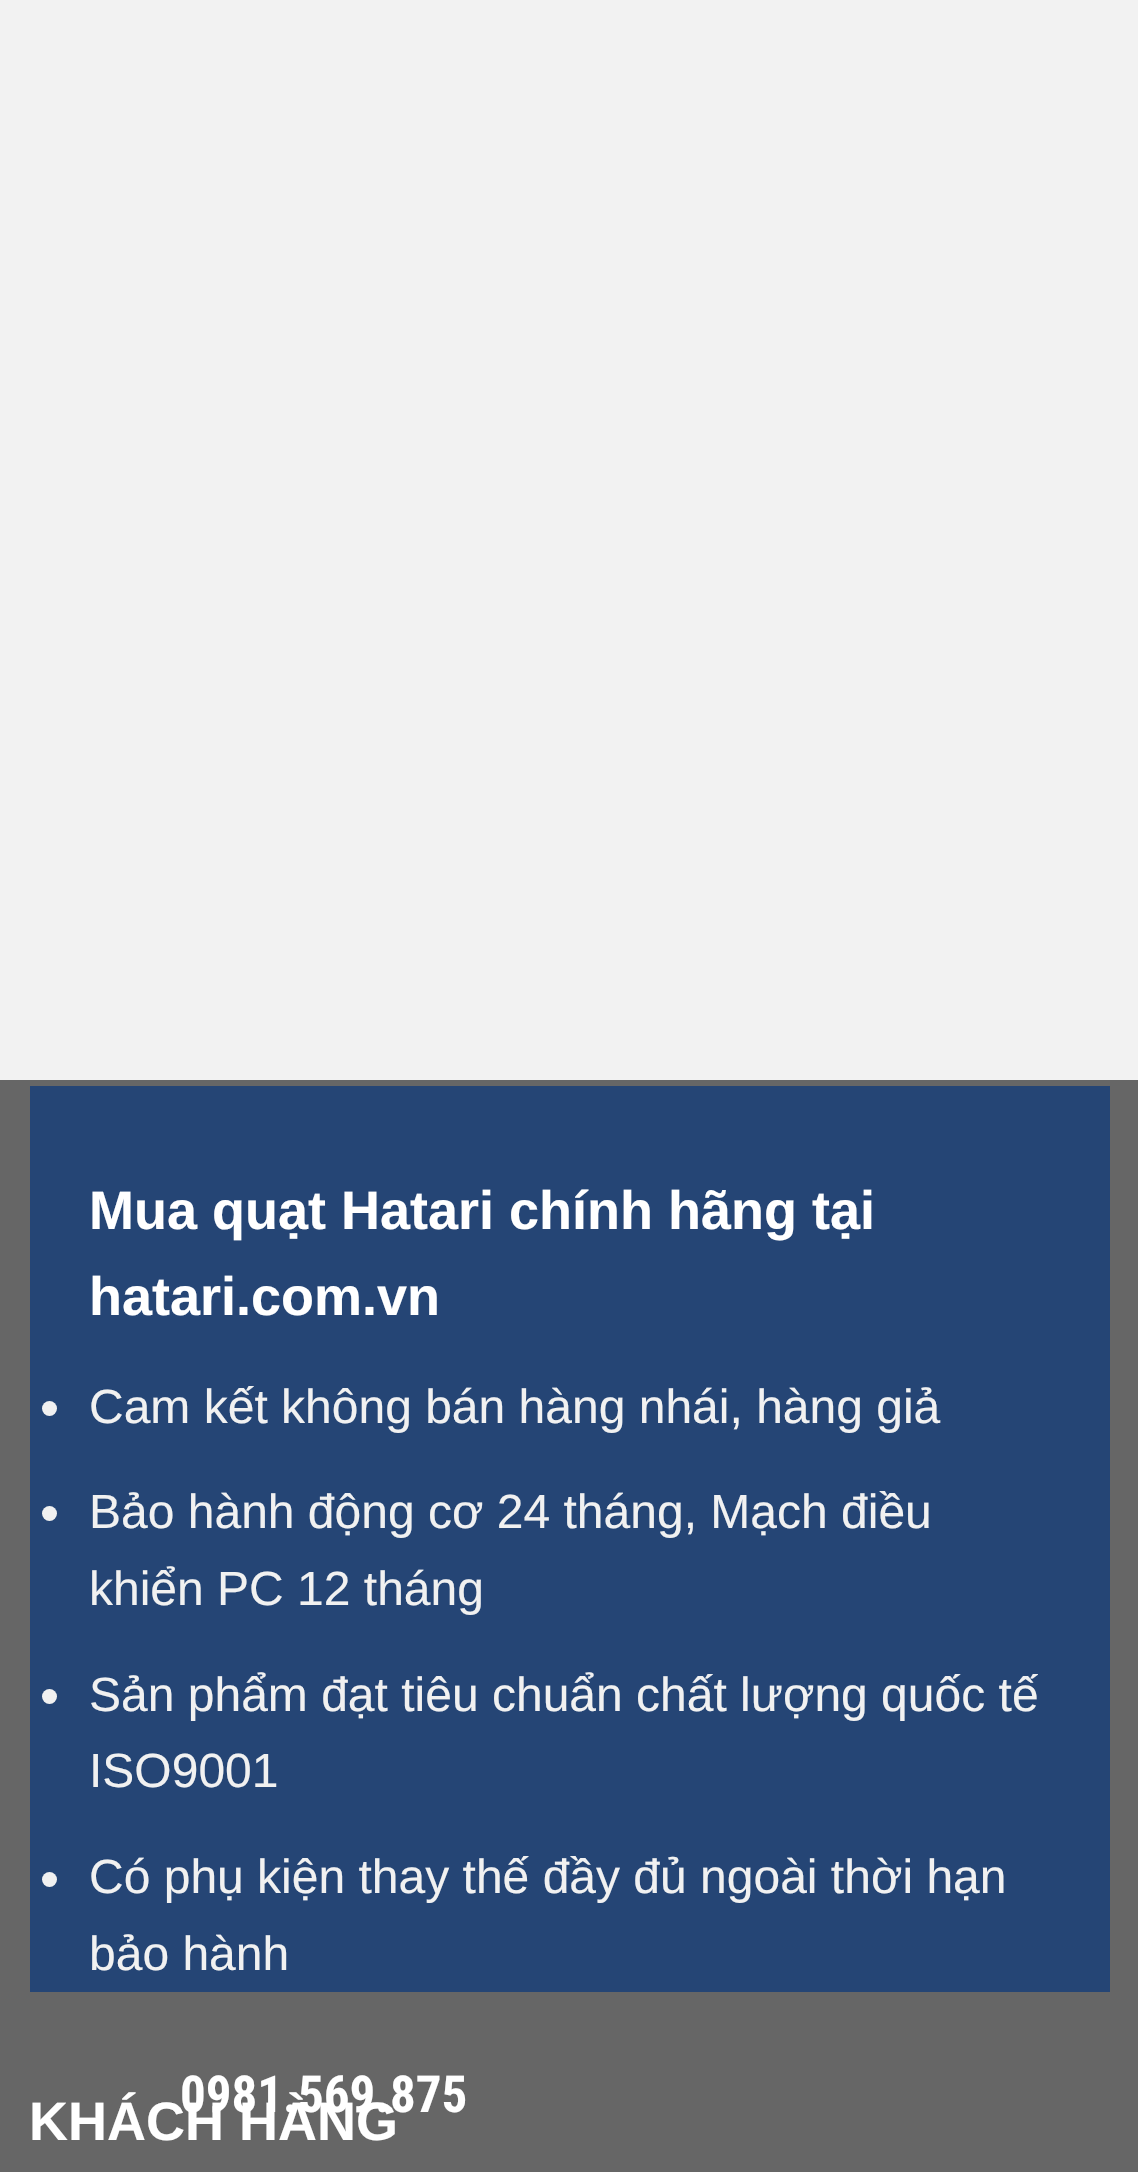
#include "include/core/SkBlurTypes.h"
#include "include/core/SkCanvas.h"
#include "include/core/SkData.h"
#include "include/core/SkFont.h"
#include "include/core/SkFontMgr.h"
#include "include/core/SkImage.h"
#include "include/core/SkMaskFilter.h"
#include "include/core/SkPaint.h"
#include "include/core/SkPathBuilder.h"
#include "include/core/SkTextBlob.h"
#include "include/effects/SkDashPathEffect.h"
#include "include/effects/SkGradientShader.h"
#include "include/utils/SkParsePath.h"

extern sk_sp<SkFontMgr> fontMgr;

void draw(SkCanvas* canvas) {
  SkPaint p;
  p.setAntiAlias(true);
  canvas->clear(SkColorSetRGB(242, 242, 242));
  p.setColor(SkColorSetRGB(102, 102, 102));
  canvas->drawRect(SkRect::MakeLTRB(0, 1080, 1138, 2172), p);
  p.setColor(SkColorSetRGB(37, 69, 117));
  canvas->drawRect(SkRect::MakeLTRB(30, 1086, 1110, 1992), p);
  p.setColor(SkColorSetRGB(241, 241, 241));
  canvas->drawCircle(49.5f, 1408.5f, 7.5f, p);
  canvas->drawCircle(49.5f, 1513.5f, 7.5f, p);
  canvas->drawCircle(49.5f, 1696.5f, 7.5f, p);
  canvas->drawCircle(49.5f, 1879.5f, 7.5f, p);
  SkFont font1(fontMgr->matchFamilyStyle("Liberation Sans", SkFontStyle::Bold()), 54);
  font1.setSubpixel(true);
  p.setColor(SK_ColorWHITE);
  canvas->drawString("Mua quạt Hatari chính hãng tại", 89, 1229, font1, p);
  canvas->drawString("hatari.com.vn", 89, 1315, font1, p);
  SkFont font2(fontMgr->matchFamilyStyle("Liberation Sans", SkFontStyle::Normal()), 48);
  font2.setSubpixel(true);
  p.setColor(SkColorSetRGB(241, 241, 241));
  canvas->drawString("Cam kết không bán hàng nhái, hàng giả", 89, 1423, font2, p);
  canvas->drawString("Bảo hành động cơ 24 tháng, Mạch điều", 89, 1528, font2, p);
  canvas->drawString("khiển PC 12 tháng", 89, 1605, font2, p);
  canvas->drawString("Sản phẩm đạt tiêu chuẩn chất lượng quốc tế", 89, 1711, font2, p);
  canvas->drawString("ISO9001", 89, 1787, font2, p);
  canvas->drawString("Có phụ kiện thay thế đầy đủ ngoài thời hạn", 89, 1893, font2, p);
  canvas->drawString("bảo hành", 89, 1970, font2, p);
  p.setColor(SK_ColorWHITE);
  canvas->drawString("KHÁCH HÀNG", 29, 2140, font1, p);
  SkFont font3(fontMgr->matchFamilyStyle("Roboto Condensed", SkFontStyle::Bold()), 51);
  font3.setSubpixel(true);
  canvas->drawString("0981.569.875", 180, 2112, font3, p);
}
